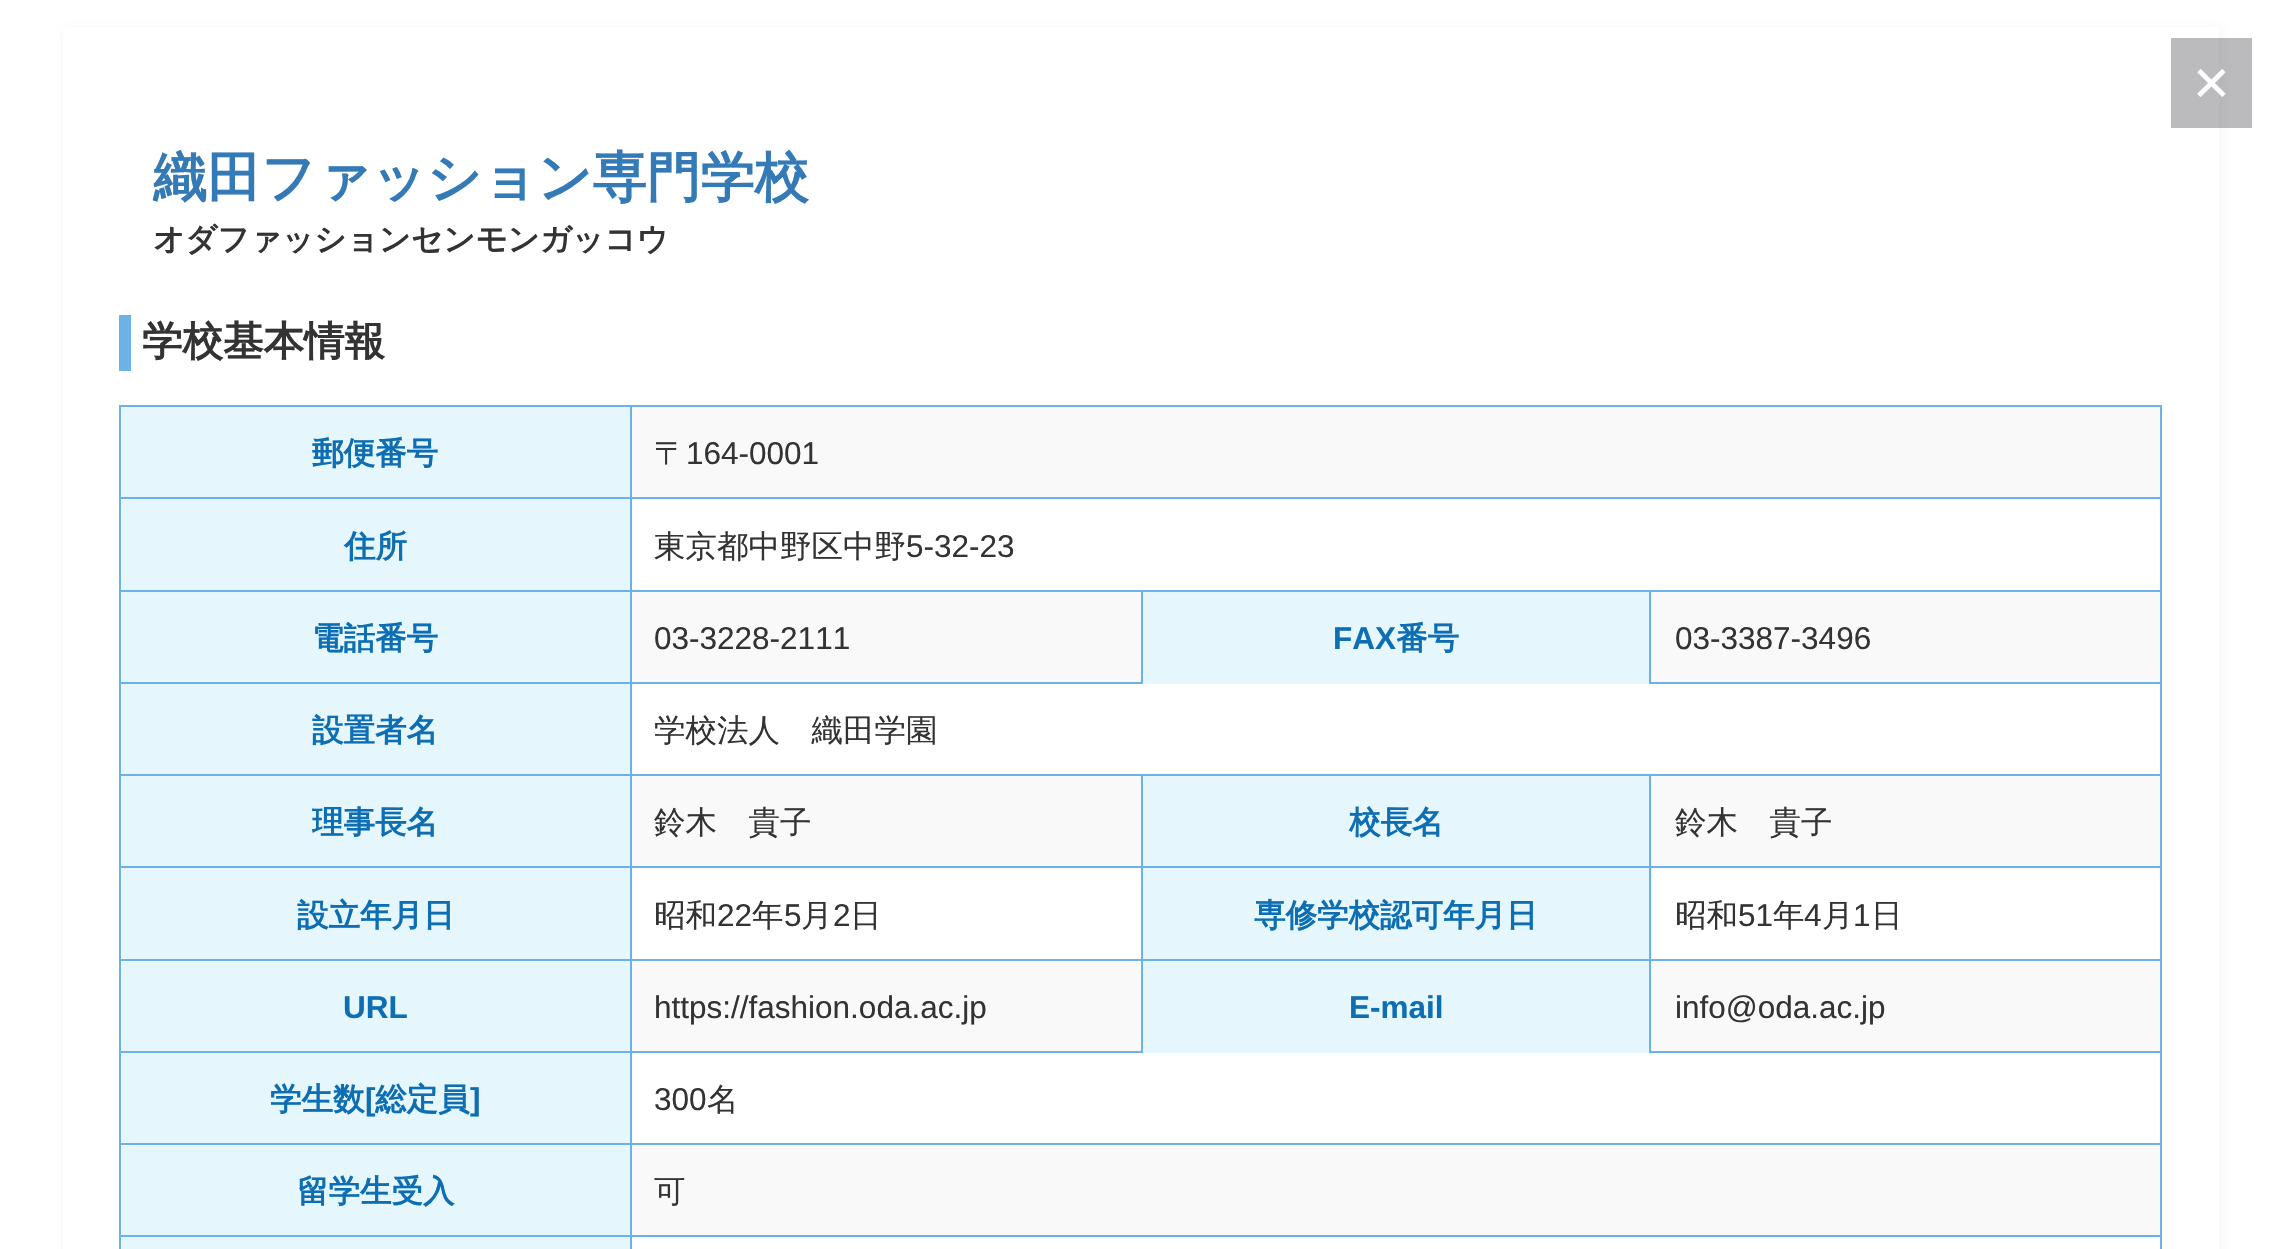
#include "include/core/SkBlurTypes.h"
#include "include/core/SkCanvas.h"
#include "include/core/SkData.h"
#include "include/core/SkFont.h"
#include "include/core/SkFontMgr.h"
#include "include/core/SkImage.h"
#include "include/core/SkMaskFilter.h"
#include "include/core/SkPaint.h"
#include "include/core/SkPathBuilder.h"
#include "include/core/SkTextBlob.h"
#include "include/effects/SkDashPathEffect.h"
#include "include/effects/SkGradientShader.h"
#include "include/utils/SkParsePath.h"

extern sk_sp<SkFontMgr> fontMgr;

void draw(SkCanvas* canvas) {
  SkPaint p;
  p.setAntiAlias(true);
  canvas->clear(SK_ColorWHITE);
  p.setColor(SkColorSetARGB(26, 126, 142, 159));
  p.setMaskFilter(SkMaskFilter::MakeBlur(kNormal_SkBlurStyle, 5.5f));
  canvas->drawRect(SkRect::MakeLTRB(65, 29, 2221, 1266), p);
  p.setMaskFilter(nullptr);
  p.setColor(SK_ColorWHITE);
  canvas->drawRect(SkRect::MakeLTRB(63, 27, 2219, 1249), p);
  p.setColor(SkColorSetARGB(77, 30, 30, 40));
  canvas->drawRect(SkRect::MakeLTRB(2171, 38, 2252, 128), p);
  p.setColor(SkColorSetRGB(108, 178, 230));
  canvas->drawRect(SkRect::MakeLTRB(119, 315, 131, 371), p);
  canvas->drawRect(SkRect::MakeLTRB(119, 405, 2162, 407), p);
  canvas->drawRect(SkRect::MakeLTRB(2160, 405, 2162, 1249), p);
  canvas->drawRect(SkRect::MakeLTRB(119, 405, 121, 1249), p);
  p.setColor(SkColorSetRGB(249, 249, 249));
  canvas->drawRect(SkRect::MakeLTRB(632, 407, 2160, 500), p);
  p.setColor(SkColorSetRGB(229, 247, 253));
  canvas->drawRect(SkRect::MakeLTRB(122, 407, 630, 590), p);
  p.setColor(SkColorSetRGB(249, 249, 249));
  canvas->drawRect(SkRect::MakeLTRB(632, 592, 2160, 682), p);
  p.setColor(SkColorSetRGB(108, 178, 230));
  canvas->drawRect(SkRect::MakeLTRB(1141, 590, 1143, 684), p);
  p.setColor(SkColorSetRGB(249, 249, 249));
  canvas->drawRect(SkRect::MakeLTRB(632, 776, 2160, 869), p);
  p.setColor(SkColorSetRGB(229, 247, 253));
  canvas->drawRect(SkRect::MakeLTRB(122, 776, 630, 959), p);
  canvas->drawRect(SkRect::MakeLTRB(1143, 776, 1652, 959), p);
  p.setColor(SkColorSetRGB(249, 249, 249));
  canvas->drawRect(SkRect::MakeLTRB(632, 961, 2160, 1051), p);
  p.setColor(SkColorSetRGB(229, 247, 253));
  canvas->drawRect(SkRect::MakeLTRB(1143, 961, 1652, 1053), p);
  p.setColor(SkColorSetRGB(108, 178, 230));
  canvas->drawRect(SkRect::MakeLTRB(1649, 1051, 2162, 1053), p);
  canvas->drawRect(SkRect::MakeLTRB(1649, 959, 1651, 1053), p);
  canvas->drawRect(SkRect::MakeLTRB(1141, 959, 2162, 961), p);
  canvas->drawRect(SkRect::MakeLTRB(1649, 866, 1651, 961), p);
  canvas->drawRect(SkRect::MakeLTRB(1141, 866, 2162, 868), p);
  canvas->drawRect(SkRect::MakeLTRB(1141, 959, 1143, 1053), p);
  canvas->drawRect(SkRect::MakeLTRB(1141, 774, 1143, 961), p);
  p.setColor(SkColorSetRGB(249, 249, 249));
  canvas->drawRect(SkRect::MakeLTRB(632, 1145, 2160, 1238), p);
  p.setColor(SkColorSetRGB(229, 247, 253));
  canvas->drawRect(SkRect::MakeLTRB(122, 1145, 630, 1249), p);
  p.setColor(SkColorSetRGB(108, 178, 230));
  canvas->drawRect(SkRect::MakeLTRB(630, 1235, 632, 1249), p);
  canvas->drawRect(SkRect::MakeLTRB(119, 1235, 2162, 1237), p);
  canvas->drawRect(SkRect::MakeLTRB(630, 1143, 632, 1238), p);
  canvas->drawRect(SkRect::MakeLTRB(119, 1143, 2162, 1145), p);
  canvas->drawRect(SkRect::MakeLTRB(630, 1051, 632, 1145), p);
  canvas->drawRect(SkRect::MakeLTRB(119, 1051, 632, 1053), p);
  canvas->drawRect(SkRect::MakeLTRB(630, 1051, 1143, 1053), p);
  canvas->drawRect(SkRect::MakeLTRB(630, 959, 632, 1053), p);
  canvas->drawRect(SkRect::MakeLTRB(119, 959, 632, 961), p);
  canvas->drawRect(SkRect::MakeLTRB(630, 959, 1143, 961), p);
  canvas->drawRect(SkRect::MakeLTRB(630, 866, 632, 961), p);
  canvas->drawRect(SkRect::MakeLTRB(119, 866, 1143, 868), p);
  canvas->drawRect(SkRect::MakeLTRB(630, 774, 632, 869), p);
  canvas->drawRect(SkRect::MakeLTRB(1649, 774, 1651, 869), p);
  canvas->drawRect(SkRect::MakeLTRB(119, 774, 2162, 776), p);
  canvas->drawRect(SkRect::MakeLTRB(630, 682, 632, 776), p);
  canvas->drawRect(SkRect::MakeLTRB(119, 682, 632, 684), p);
  canvas->drawRect(SkRect::MakeLTRB(630, 682, 1143, 684), p);
  canvas->drawRect(SkRect::MakeLTRB(630, 590, 632, 684), p);
  p.setColor(SkColorSetRGB(229, 247, 253));
  canvas->drawRect(SkRect::MakeLTRB(1143, 592, 1652, 684), p);
  p.setColor(SkColorSetRGB(108, 178, 230));
  canvas->drawRect(SkRect::MakeLTRB(1649, 682, 2162, 684), p);
  canvas->drawRect(SkRect::MakeLTRB(1649, 590, 1651, 684), p);
  canvas->drawRect(SkRect::MakeLTRB(119, 590, 2162, 592), p);
  canvas->drawRect(SkRect::MakeLTRB(630, 497, 632, 592), p);
  canvas->drawRect(SkRect::MakeLTRB(119, 497, 2162, 499), p);
  canvas->drawRect(SkRect::MakeLTRB(630, 405, 632, 500), p);
  p.setColor(SkColorSetRGB(229, 247, 253));
  canvas->drawRect(SkRect::MakeLTRB(122, 592, 630, 682), p);
  canvas->drawRect(SkRect::MakeLTRB(122, 684, 630, 774), p);
  canvas->drawRect(SkRect::MakeLTRB(122, 961, 630, 1051), p);
  canvas->drawRect(SkRect::MakeLTRB(122, 1053, 630, 1143), p);
  SkFont font1(fontMgr->matchFamilyStyle("Liberation Sans", SkFontStyle::Normal()), 63);
  font1.setSubpixel(true);
  p.setColor(SK_ColorWHITE);
  canvas->drawString("×", 2193, 104, font1, p);
  SkFont font2(fontMgr->matchFamilyStyle("WenQuanYi Zen Hei", SkFontStyle::Bold()), 54);
  font2.setSubpixel(true);
  p.setColor(SkColorSetRGB(51, 122, 183));
  canvas->drawString("織田ファッション専門学校", 153, 196, font2, p);
  SkFont font3(fontMgr->matchFamilyStyle("WenQuanYi Zen Hei", SkFontStyle::Bold()), 31.5f);
  font3.setSubpixel(true);
  p.setColor(SkColorSetRGB(51, 51, 51));
  canvas->drawString("オダファッションセンモンガッコウ", 153, 250, font3, p);
  SkFont font4(fontMgr->matchFamilyStyle("WenQuanYi Zen Hei", SkFontStyle::Bold()), 40.5f);
  font4.setSubpixel(true);
  canvas->drawString("学校基本情報", 142, 355, font4, p);
  p.setColor(SkColorSetRGB(14, 110, 179));
  canvas->drawString("郵便番号", 312, 464, font3, p);
  SkFont font5(fontMgr->matchFamilyStyle("WenQuanYi Zen Hei", SkFontStyle(500, SkFontStyle::kNormal_Width, SkFontStyle::kUpright_Slant)), 31.5f);
  font5.setSubpixel(true);
  p.setColor(SkColorSetRGB(51, 51, 51));
  canvas->drawString("〒", 654, 464, font5, p);
  SkFont font6(fontMgr->matchFamilyStyle("Liberation Sans", SkFontStyle::Normal()), 31.5f);
  font6.setSubpixel(true);
  canvas->drawString("164-0001", 686, 464, font6, p);
  p.setColor(SkColorSetRGB(14, 110, 179));
  canvas->drawString("住所", 344, 557, font3, p);
  p.setColor(SkColorSetRGB(51, 51, 51));
  canvas->drawString("東京都中野区中野", 654, 557, font5, p);
  canvas->drawString("5-32-23", 906, 557, font6, p);
  p.setColor(SkColorSetRGB(14, 110, 179));
  canvas->drawString("電話番号", 312, 649, font3, p);
  p.setColor(SkColorSetRGB(51, 51, 51));
  canvas->drawString("03-3228-2111", 654, 649, font6, p);
  SkFont font7(fontMgr->matchFamilyStyle("Liberation Sans", SkFontStyle::Bold()), 31.5f);
  font7.setSubpixel(true);
  p.setColor(SkColorSetRGB(14, 110, 179));
  canvas->drawString("FAX", 1333, 649, font7, p);
  canvas->drawString("番号", 1396, 649, font3, p);
  p.setColor(SkColorSetRGB(51, 51, 51));
  canvas->drawString("03-3387-3496", 1675, 649, font6, p);
  p.setColor(SkColorSetRGB(14, 110, 179));
  canvas->drawString("設置者名", 312, 741, font3, p);
  p.setColor(SkColorSetRGB(51, 51, 51));
  canvas->drawString("学校法人　織田学園", 654, 741, font5, p);
  p.setColor(SkColorSetRGB(14, 110, 179));
  canvas->drawString("理事長名", 312, 833, font3, p);
  p.setColor(SkColorSetRGB(51, 51, 51));
  canvas->drawString("鈴木　貴子", 654, 833, font5, p);
  p.setColor(SkColorSetRGB(14, 110, 179));
  canvas->drawString("校長名", 1349, 833, font3, p);
  p.setColor(SkColorSetRGB(51, 51, 51));
  canvas->drawString("鈴木　貴子", 1675, 833, font5, p);
  p.setColor(SkColorSetRGB(14, 110, 179));
  canvas->drawString("設立年月日", 297, 926, font3, p);
  p.setColor(SkColorSetRGB(51, 51, 51));
  canvas->drawString("昭和", 654, 926, font5, p);
  canvas->drawString("22", 717, 926, font6, p);
  canvas->drawString("年", 752, 926, font5, p);
  canvas->drawString("5", 784, 926, font6, p);
  canvas->drawString("月", 801, 926, font5, p);
  canvas->drawString("2", 833, 926, font6, p);
  canvas->drawString("日", 850, 926, font5, p);
  p.setColor(SkColorSetRGB(14, 110, 179));
  canvas->drawString("専修学校認可年月日", 1254, 926, font3, p);
  p.setColor(SkColorSetRGB(51, 51, 51));
  canvas->drawString("昭和", 1675, 926, font5, p);
  canvas->drawString("51", 1738, 926, font6, p);
  canvas->drawString("年", 1773, 926, font5, p);
  canvas->drawString("4", 1804, 926, font6, p);
  canvas->drawString("月", 1822, 926, font5, p);
  canvas->drawString("1", 1853, 926, font6, p);
  canvas->drawString("日", 1871, 926, font5, p);
  p.setColor(SkColorSetRGB(14, 110, 179));
  canvas->drawString("URL", 343, 1018, font7, p);
  p.setColor(SkColorSetRGB(51, 51, 51));
  canvas->drawString("https://fashion.oda.ac.jp", 654, 1018, font6, p);
  p.setColor(SkColorSetRGB(14, 110, 179));
  canvas->drawString("E-mail", 1349, 1018, font7, p);
  p.setColor(SkColorSetRGB(51, 51, 51));
  canvas->drawString("info@oda.ac.jp", 1675, 1018, font6, p);
  p.setColor(SkColorSetRGB(14, 110, 179));
  canvas->drawString("学生数", 270, 1110, font3, p);
  canvas->drawString("[", 365, 1110, font7, p);
  canvas->drawString("総定員", 375, 1110, font3, p);
  canvas->drawString("]", 470, 1110, font7, p);
  p.setColor(SkColorSetRGB(51, 51, 51));
  canvas->drawString("300", 654, 1110, font6, p);
  canvas->drawString("名", 707, 1110, font5, p);
  p.setColor(SkColorSetRGB(14, 110, 179));
  canvas->drawString("留学生受入", 297, 1202, font3, p);
  p.setColor(SkColorSetRGB(51, 51, 51));
  canvas->drawString("可", 654, 1202, font5, p);
}
